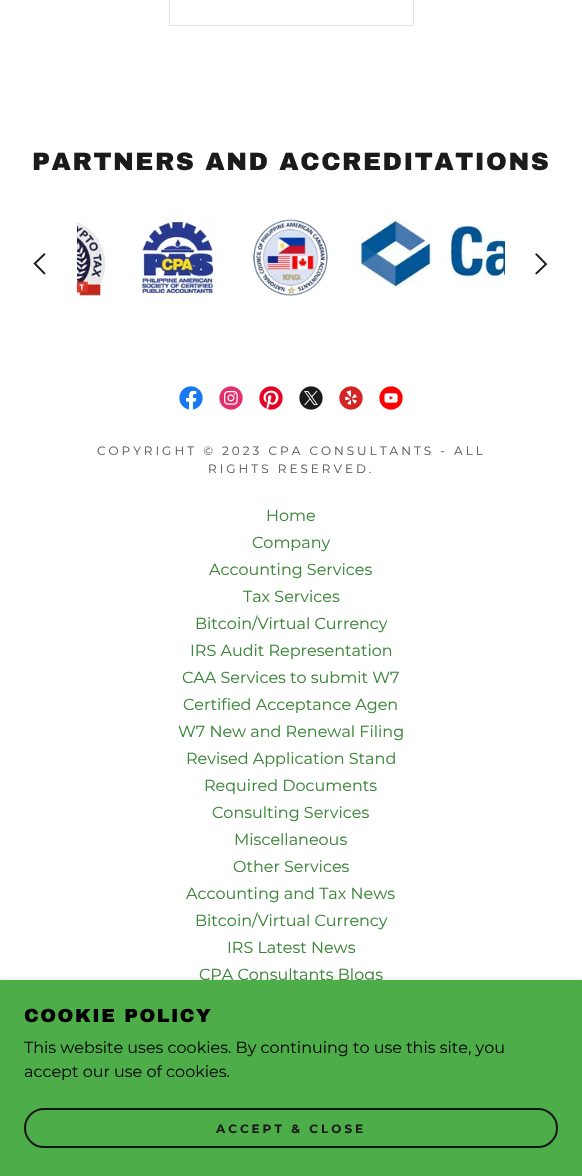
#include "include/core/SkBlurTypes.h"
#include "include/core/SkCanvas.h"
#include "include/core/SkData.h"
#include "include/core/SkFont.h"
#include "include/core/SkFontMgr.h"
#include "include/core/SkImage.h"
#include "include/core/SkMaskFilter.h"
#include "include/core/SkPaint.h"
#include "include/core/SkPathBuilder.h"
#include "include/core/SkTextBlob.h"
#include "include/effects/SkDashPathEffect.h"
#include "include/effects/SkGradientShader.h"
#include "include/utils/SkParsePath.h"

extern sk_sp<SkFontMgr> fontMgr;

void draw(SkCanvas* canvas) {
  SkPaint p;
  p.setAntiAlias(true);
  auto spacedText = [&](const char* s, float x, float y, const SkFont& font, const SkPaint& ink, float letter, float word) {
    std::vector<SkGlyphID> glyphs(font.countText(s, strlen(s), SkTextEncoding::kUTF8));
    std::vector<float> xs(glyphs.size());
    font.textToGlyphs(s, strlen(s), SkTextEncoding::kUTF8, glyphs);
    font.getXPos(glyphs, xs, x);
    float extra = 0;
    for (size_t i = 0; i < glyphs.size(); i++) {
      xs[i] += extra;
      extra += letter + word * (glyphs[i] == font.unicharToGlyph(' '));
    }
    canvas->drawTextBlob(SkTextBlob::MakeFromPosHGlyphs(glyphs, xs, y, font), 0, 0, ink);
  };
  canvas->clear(SK_ColorWHITE);
  p.setStyle(SkPaint::kStroke_Style);
  p.setStrokeWidth(1);
  p.setColor(SkColorSetRGB(226, 226, 226));
  canvas->drawRect(SkRect::MakeLTRB(169.5f, -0.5f, 413.5f, 25.5f), p);
  canvas->drawImageRect(SkImages::DeferredFromEncodedData(SkData::MakeFromFileName("images/1.png")), SkRect::MakeLTRB(33, 253, 46, 275), SkSamplingOptions());
  canvas->drawImageRect(SkImages::DeferredFromEncodedData(SkData::MakeFromFileName("images/2.png")), SkRect::MakeLTRB(77, 222, 106, 296), SkSamplingOptions());
  canvas->drawImageRect(SkImages::DeferredFromEncodedData(SkData::MakeFromFileName("images/3.png")), SkRect::MakeLTRB(138, 218, 216, 294), SkSamplingOptions());
  canvas->drawImageRect(SkImages::DeferredFromEncodedData(SkData::MakeFromFileName("images/4.png")), SkRect::MakeLTRB(253, 219, 328, 296), SkSamplingOptions());
  canvas->drawImageRect(SkImages::DeferredFromEncodedData(SkData::MakeFromFileName("images/5.png")), SkRect::MakeLTRB(361, 218, 505, 288), SkSamplingOptions());
  canvas->drawImageRect(SkImages::DeferredFromEncodedData(SkData::MakeFromFileName("images/6.png")), SkRect::MakeLTRB(535, 253, 548, 275), SkSamplingOptions());
  canvas->drawImageRect(SkImages::DeferredFromEncodedData(SkData::MakeFromFileName("images/7.png")), SkRect::MakeLTRB(179, 386, 203, 410), SkSamplingOptions());
  canvas->drawImageRect(SkImages::DeferredFromEncodedData(SkData::MakeFromFileName("images/8.png")), SkRect::MakeLTRB(219, 386, 243, 410), SkSamplingOptions());
  canvas->drawImageRect(SkImages::DeferredFromEncodedData(SkData::MakeFromFileName("images/9.png")), SkRect::MakeLTRB(259, 386, 283, 410), SkSamplingOptions());
  canvas->drawImageRect(SkImages::DeferredFromEncodedData(SkData::MakeFromFileName("images/10.png")), SkRect::MakeLTRB(299, 386, 323, 410), SkSamplingOptions());
  canvas->drawImageRect(SkImages::DeferredFromEncodedData(SkData::MakeFromFileName("images/11.png")), SkRect::MakeLTRB(339, 386, 363, 410), SkSamplingOptions());
  canvas->drawImageRect(SkImages::DeferredFromEncodedData(SkData::MakeFromFileName("images/12.png")), SkRect::MakeLTRB(379, 386, 403, 410), SkSamplingOptions());
  p.setStyle(SkPaint::kFill_Style);
  p.setColor(SkColorSetARGB(77, 0, 0, 0));
  p.setMaskFilter(SkMaskFilter::MakeBlur(kNormal_SkBlurStyle, 3));
  canvas->drawRect(SkRect::MakeLTRB(0, 982, 582, 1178), p);
  p.setMaskFilter(nullptr);
  SkFont font1(fontMgr->matchFamilyStyle("Archivo Black", SkFontStyle(900, SkFontStyle::kNormal_Width, SkFontStyle::kUpright_Slant)), 25);
  font1.setSubpixel(true);
  p.setColor(SkColorSetRGB(27, 27, 27));
  spacedText("PARTNERS AND ACCREDITATIONS", 32, 170, font1, p, 1.5f, 0);
  SkFont font2(fontMgr->matchFamilyStyle("Montserrat", SkFontStyle::Normal()), 12);
  font2.setSubpixel(true);
  p.setColor(SkColorSetRGB(89, 89, 89));
  spacedText("COPYRIGHT © 2023 CPA CONSULTANTS - ALL", 97, 455, font2, p, 3, 0);
  spacedText("RIGHTS RESERVED.", 208, 473, font2, p, 3, 0);
  SkFont font3(fontMgr->matchFamilyStyle("Montserrat", SkFontStyle::Normal()), 16);
  font3.setSubpixel(true);
  p.setColor(SkColorSetRGB(58, 133, 56));
  canvas->drawString("Home", 266, 521, font3, p);
  canvas->drawString("Company", 252, 548, font3, p);
  canvas->drawString("Accounting Services", 209, 575, font3, p);
  canvas->drawString("Tax Services", 243, 602, font3, p);
  canvas->drawString("Bitcoin/Virtual Currency", 195, 629, font3, p);
  canvas->drawString("IRS Audit Representation", 190, 656, font3, p);
  canvas->drawString("CAA Services to submit W7", 182, 683, font3, p);
  canvas->drawString("Certified Acceptance Agen", 183, 710, font3, p);
  canvas->drawString("W7 New and Renewal Filing", 178, 737, font3, p);
  canvas->drawString("Revised Application Stand", 186, 764, font3, p);
  canvas->drawString("Required Documents", 204, 791, font3, p);
  canvas->drawString("Consulting Services", 212, 818, font3, p);
  canvas->drawString("Miscellaneous", 234, 845, font3, p);
  canvas->drawString("Other Services", 233, 872, font3, p);
  canvas->drawString("Accounting and Tax News", 186, 899, font3, p);
  canvas->drawString("Bitcoin/Virtual Currency", 195, 926, font3, p);
  canvas->drawString("IRS Latest News", 227, 953, font3, p);
  canvas->drawString("CPA Consultants Blogs", 199, 980, font3, p);
  p.setColor(SkColorSetRGB(76, 173, 73));
  canvas->drawRect(SkRect::MakeLTRB(0, 980, 582, 1176), p);
  SkFont font4(fontMgr->matchFamilyStyle("Archivo Black", SkFontStyle(900, SkFontStyle::kNormal_Width, SkFontStyle::kUpright_Slant)), 19);
  font4.setSubpixel(true);
  p.setColor(SK_ColorBLACK);
  spacedText("COOKIE POLICY", 24, 1022, font4, p, 1.5f, 0);
  p.setColor(SkColorSetRGB(11, 12, 11));
  canvas->drawString("This website uses cookies. By continuing to use this site, you", 24, 1053, font3, p);
  canvas->drawString("accept our use of cookies.", 24, 1077, font3, p);
  p.setStyle(SkPaint::kStroke_Style);
  p.setStrokeWidth(2);
  p.setColor(SkColorSetRGB(22, 22, 22));
  canvas->drawRoundRect(SkRect::MakeLTRB(25, 1109, 557, 1147), 19, 19, p);
  SkFont font5(fontMgr->matchFamilyStyle("Montserrat", SkFontStyle::Bold()), 12);
  font5.setSubpixel(true);
  p.setStyle(SkPaint::kFill_Style);
  p.setColor(SkColorSetRGB(27, 27, 27));
  spacedText("ACCEPT & CLOSE", 216, 1133, font5, p, 3, 0);
}
